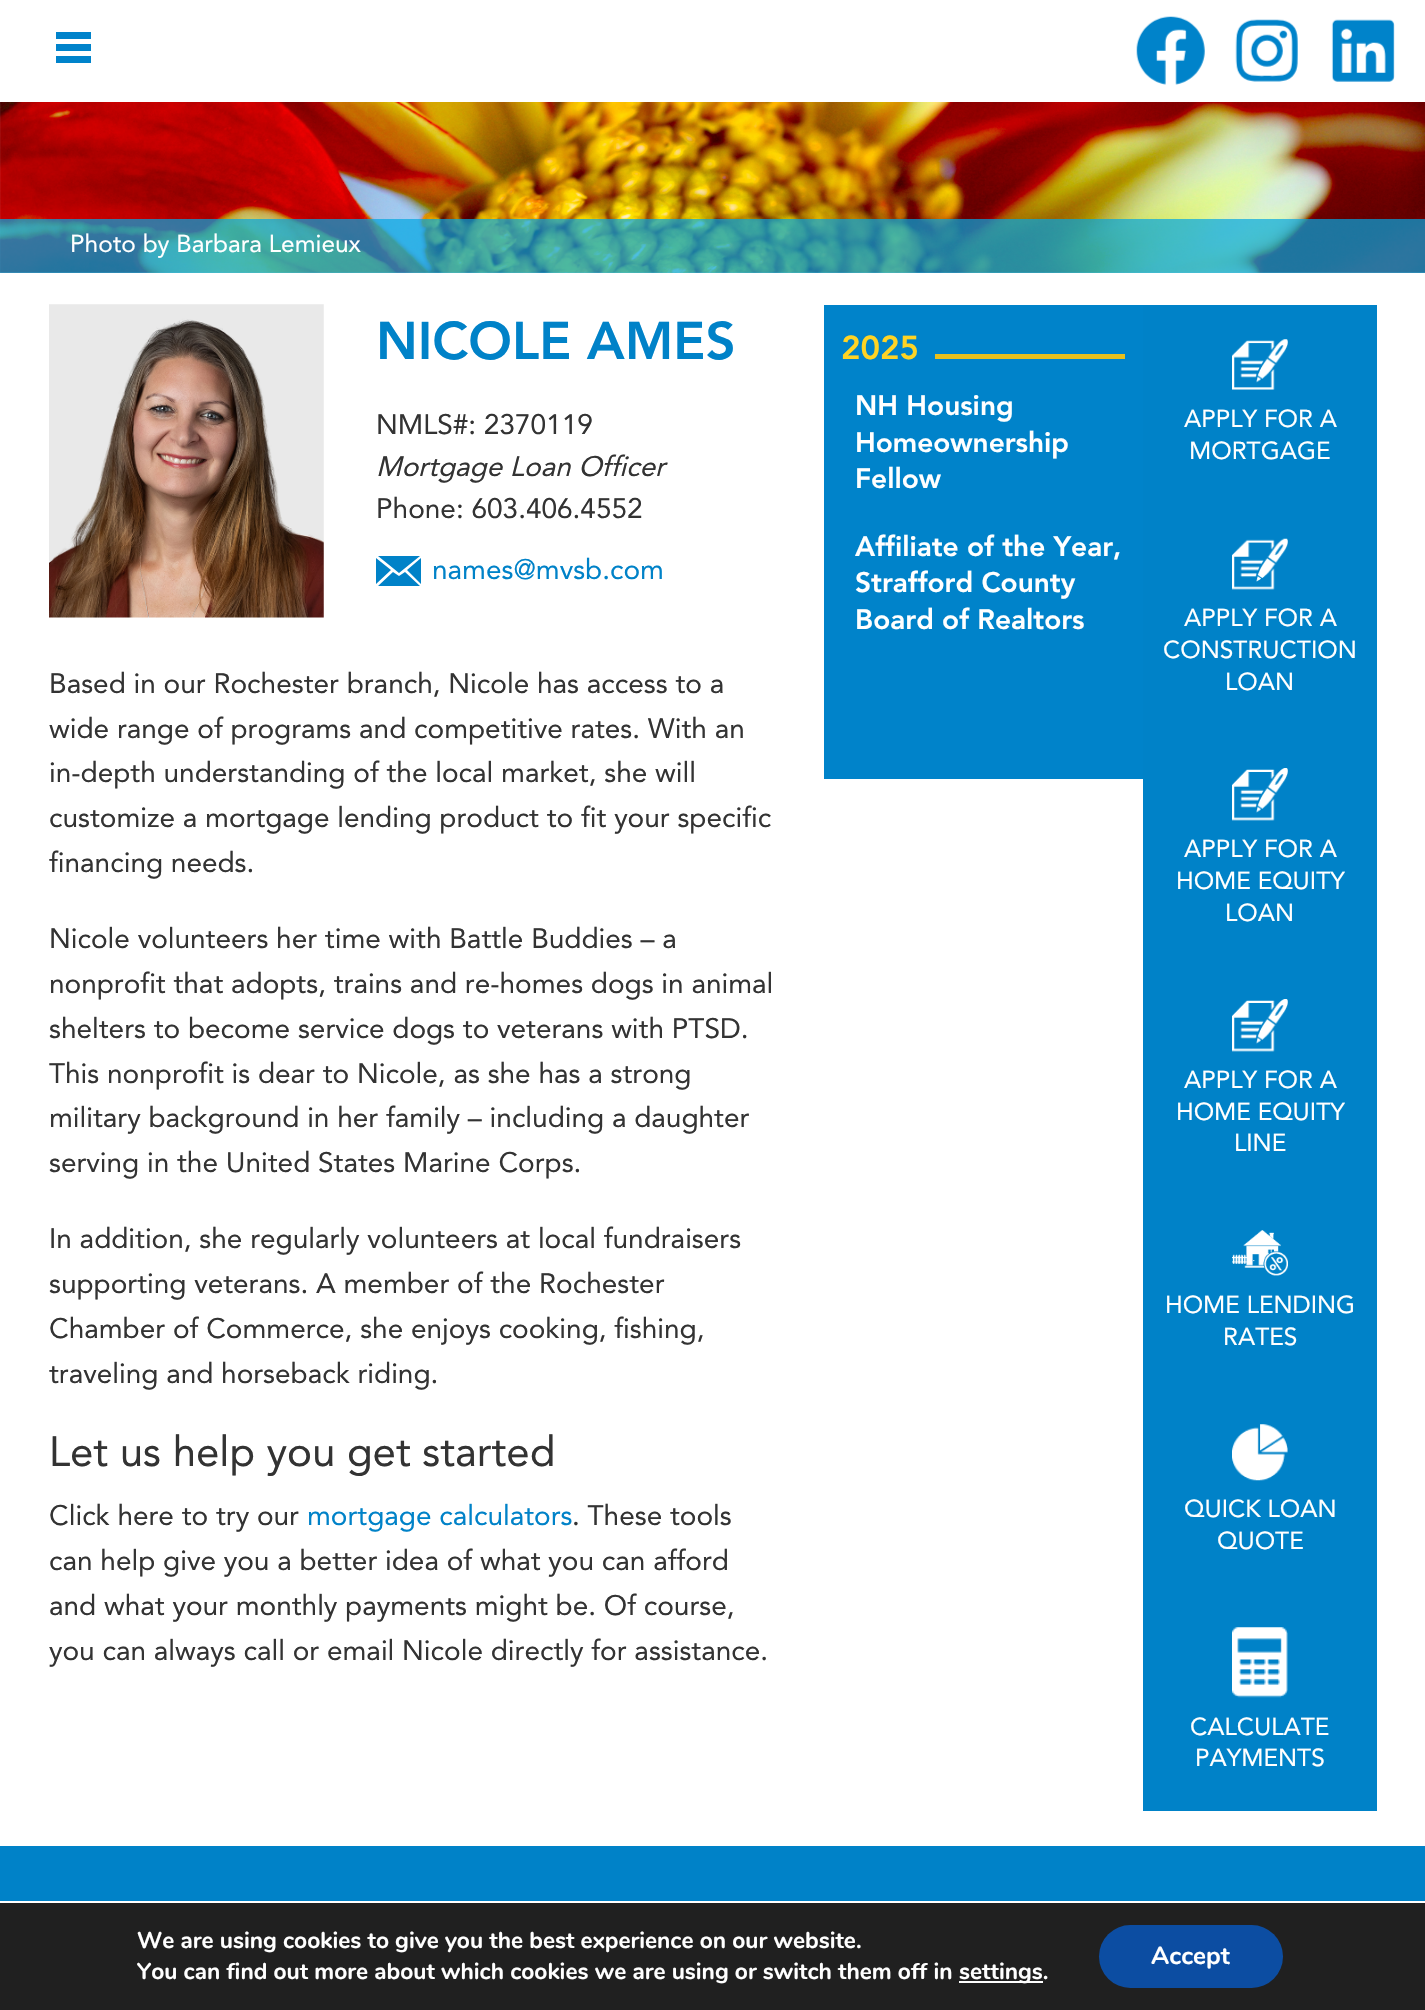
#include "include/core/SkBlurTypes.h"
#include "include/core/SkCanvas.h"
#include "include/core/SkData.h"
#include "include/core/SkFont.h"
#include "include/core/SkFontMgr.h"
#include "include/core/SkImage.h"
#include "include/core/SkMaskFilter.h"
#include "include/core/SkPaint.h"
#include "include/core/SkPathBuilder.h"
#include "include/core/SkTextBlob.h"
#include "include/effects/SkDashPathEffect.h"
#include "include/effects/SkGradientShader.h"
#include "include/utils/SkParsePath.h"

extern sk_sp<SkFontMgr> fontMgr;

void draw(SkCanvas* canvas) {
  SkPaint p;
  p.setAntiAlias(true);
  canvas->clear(SK_ColorWHITE);
  p.setColor(SkColorSetRGB(0, 131, 203));
  canvas->drawRect(SkRect::MakeLTRB(56, 32, 91, 39), p);
  canvas->drawRect(SkRect::MakeLTRB(56, 44, 91, 51), p);
  canvas->drawRect(SkRect::MakeLTRB(56, 56, 91, 63), p);
  canvas->drawImageRect(SkImages::DeferredFromEncodedData(SkData::MakeFromFileName("images/1.png")), SkRect::MakeLTRB(1136, 16, 1205, 85), SkSamplingOptions());
  canvas->drawImageRect(SkImages::DeferredFromEncodedData(SkData::MakeFromFileName("images/2.png")), SkRect::MakeLTRB(1235, 19, 1298, 82), SkSamplingOptions());
  canvas->drawImageRect(SkImages::DeferredFromEncodedData(SkData::MakeFromFileName("images/3.png")), SkRect::MakeLTRB(1331, 19, 1395, 82), SkSamplingOptions());
  canvas->drawImageRect(SkImages::DeferredFromEncodedData(SkData::MakeFromFileName("images/4.png")), SkRect::MakeLTRB(0, 102, 1425, 273), SkSamplingOptions());
  p.setColor(SkColorSetARGB(179, 0, 166, 227));
  canvas->drawRect(SkRect::MakeLTRB(0, 219, 1425, 273), p);
  canvas->drawImageRect(SkImages::DeferredFromEncodedData(SkData::MakeFromFileName("images/5.png")), SkRect::MakeLTRB(49, 304, 324, 618), SkSamplingOptions());
  p.setColor(SkColorSetRGB(0, 130, 200));
  canvas->drawPath(SkPathBuilder().moveTo(376, 584).lineTo(376, 558).lineTo(391, 570).close().moveTo(378, 556).lineTo(420, 556).lineTo(399, 573).close().moveTo(378, 586).lineTo(393, 572).lineTo(399, 576).lineTo(405, 572).lineTo(420, 586).close().moveTo(407, 570).lineTo(421, 558).lineTo(421, 584).close().detach(), p);
  p.setColor(SkColorSetRGB(0, 131, 202));
  canvas->drawRect(SkRect::MakeLTRB(824, 305, 1143, 779), p);
  p.setColor(SkColorSetRGB(232, 192, 28));
  canvas->drawRect(SkRect::MakeLTRB(935, 354, 1125, 359), p);
  p.setColor(SkColorSetRGB(0, 130, 200));
  canvas->drawRect(SkRect::MakeLTRB(1143, 305, 1377, 1811), p);
  canvas->drawImageRect(SkImages::DeferredFromEncodedData(SkData::MakeFromFileName("images/6.png")), SkRect::MakeLTRB(1232, 339, 1288, 390), SkSamplingOptions());
  canvas->drawImageRect(SkImages::DeferredFromEncodedData(SkData::MakeFromFileName("images/7.png")), SkRect::MakeLTRB(1232, 538, 1288, 590), SkSamplingOptions());
  canvas->drawImageRect(SkImages::DeferredFromEncodedData(SkData::MakeFromFileName("images/8.png")), SkRect::MakeLTRB(1232, 768, 1288, 821), SkSamplingOptions());
  canvas->drawImageRect(SkImages::DeferredFromEncodedData(SkData::MakeFromFileName("images/8.png")), SkRect::MakeLTRB(1232, 999, 1288, 1052), SkSamplingOptions());
  canvas->drawImageRect(SkImages::DeferredFromEncodedData(SkData::MakeFromFileName("images/9.png")), SkRect::MakeLTRB(1232, 1230, 1288, 1276), SkSamplingOptions());
  canvas->drawImageRect(SkImages::DeferredFromEncodedData(SkData::MakeFromFileName("images/10.png")), SkRect::MakeLTRB(1232, 1424, 1288, 1481), SkSamplingOptions());
  canvas->drawImageRect(SkImages::DeferredFromEncodedData(SkData::MakeFromFileName("images/11.png")), SkRect::MakeLTRB(1232, 1627, 1288, 1698), SkSamplingOptions());
  canvas->drawRect(SkRect::MakeLTRB(0, 1846, 1425, 1901), p);
  p.setColor(SkColorSetRGB(32, 32, 32));
  canvas->drawRect(SkRect::MakeLTRB(0, 1903, 1425, 2010), p);
  p.setColor(SK_ColorWHITE);
  canvas->drawRect(SkRect::MakeLTRB(959, 1981, 1043, 1983), p);
  p.setColor(SkColorSetRGB(12, 77, 162));
  canvas->drawRoundRect(SkRect::MakeLTRB(1099, 1925, 1283, 1988), 31.5f, 31.5f, p);
  SkFont font1(fontMgr->matchFamilyStyle("Avenir", SkFontStyle::Normal()), 24.5f);
  font1.setSubpixel(true);
  p.setColor(SK_ColorWHITE);
  canvas->drawString("Photo by Barbara Lemieux", 70, 252, font1, p);
  SkFont font2(fontMgr->matchFamilyStyle("Avenir", SkFontStyle(900, SkFontStyle::kNormal_Width, SkFontStyle::kUpright_Slant)), 52.5f);
  font2.setSubpixel(true);
  p.setColor(SkColorSetRGB(0, 130, 200));
  canvas->drawString("NICOLE AMES", 376, 359, font2, p);
  SkFont font3(fontMgr->matchFamilyStyle("Avenir", SkFontStyle::Normal()), 28);
  font3.setSubpixel(true);
  p.setColor(SkColorSetRGB(51, 51, 51));
  canvas->drawString("NMLS#: 2370119", 376, 434, font3, p);
  SkFont font4(fontMgr->matchFamilyStyle("Avenir", SkFontStyle::Italic()), 28);
  font4.setSubpixel(true);
  canvas->drawString("Mortgage Loan Officer", 376, 476, font4, p);
  canvas->drawString("Phone: 603.406.4552", 376, 518, font3, p);
  p.setColor(SkColorSetRGB(0, 130, 200));
  canvas->drawString("names@mvsb.com", 432, 579, font3, p);
  p.setColor(SkColorSetRGB(51, 51, 51));
  canvas->drawString("Based in our Rochester branch, Nicole has access to a", 49, 693, font3, p);
  canvas->drawString("wide range of programs and competitive rates. With an", 49, 738, font3, p);
  canvas->drawString("in-depth understanding of the local market, she will", 49, 782, font3, p);
  canvas->drawString("customize a mortgage lending product to fit your specific", 49, 827, font3, p);
  canvas->drawString("financing needs.", 49, 872, font3, p);
  canvas->drawString("Nicole volunteers her time with Battle Buddies – a", 49, 948, font3, p);
  canvas->drawString("nonprofit that adopts, trains and re-homes dogs in animal", 49, 993, font3, p);
  canvas->drawString("shelters to become service dogs to veterans with PTSD.", 49, 1038, font3, p);
  canvas->drawString("This nonprofit is dear to Nicole, as she has a strong", 49, 1083, font3, p);
  canvas->drawString("military background in her family – including a daughter", 49, 1127, font3, p);
  canvas->drawString("serving in the United States Marine Corps.", 49, 1172, font3, p);
  canvas->drawString("In addition, she regularly volunteers at local fundraisers", 49, 1248, font3, p);
  canvas->drawString("supporting veterans. A member of the Rochester", 49, 1293, font3, p);
  canvas->drawString("Chamber of Commerce, she enjoys cooking, fishing,", 49, 1338, font3, p);
  canvas->drawString("traveling and horseback riding.", 49, 1383, font3, p);
  SkFont font5(fontMgr->matchFamilyStyle("Avenir", SkFontStyle::Normal()), 42);
  font5.setSubpixel(true);
  canvas->drawString("Let us help you get started", 49, 1466, font5, p);
  canvas->drawString("Click here to try our", 49, 1525, font3, p);
  p.setColor(SkColorSetRGB(0, 130, 200));
  canvas->drawString("mortgage calculators", 307, 1525, font3, p);
  p.setColor(SkColorSetRGB(51, 51, 51));
  canvas->drawString(". These tools", 572, 1525, font3, p);
  canvas->drawString("can help give you a better idea of what you can afford", 49, 1570, font3, p);
  canvas->drawString("and what your monthly payments might be. Of course,", 49, 1615, font3, p);
  canvas->drawString("you can always call or email Nicole directly for assistance.", 49, 1660, font3, p);
  SkFont font6(fontMgr->matchFamilyStyle("Avenir", SkFontStyle(900, SkFontStyle::kNormal_Width, SkFontStyle::kUpright_Slant)), 33);
  font6.setSubpixel(true);
  p.setColor(SkColorSetRGB(255, 212, 36));
  canvas->drawString("2025", 841, 359, font6, p);
  SkFont font7(fontMgr->matchFamilyStyle("Avenir", SkFontStyle(900, SkFontStyle::kNormal_Width, SkFontStyle::kUpright_Slant)), 28);
  font7.setSubpixel(true);
  p.setColor(SK_ColorWHITE);
  canvas->drawString("NH Housing", 855, 415, font7, p);
  canvas->drawString("Homeownership", 855, 452, font7, p);
  canvas->drawString("Fellow", 855, 488, font7, p);
  canvas->drawString("Affiliate of the Year,", 855, 556, font7, p);
  canvas->drawString("Strafford County", 855, 592, font7, p);
  canvas->drawString("Board of Realtors", 855, 629, font7, p);
  canvas->drawString("APPLY FOR A", 1184, 427, font1, p);
  canvas->drawString("MORTGAGE", 1189, 459, font1, p);
  canvas->drawString("APPLY FOR A", 1184, 626, font1, p);
  canvas->drawString("CONSTRUCTION", 1163, 658, font1, p);
  canvas->drawString("LOAN", 1225, 690, font1, p);
  canvas->drawString("APPLY FOR A", 1184, 857, font1, p);
  canvas->drawString("HOME EQUITY", 1176, 889, font1, p);
  canvas->drawString("LOAN", 1225, 921, font1, p);
  canvas->drawString("APPLY FOR A", 1184, 1088, font1, p);
  canvas->drawString("HOME EQUITY", 1176, 1120, font1, p);
  canvas->drawString("LINE", 1234, 1151, font1, p);
  canvas->drawString("HOME LENDING", 1165, 1313, font1, p);
  canvas->drawString("RATES", 1223, 1345, font1, p);
  canvas->drawString("QUICK LOAN", 1184, 1517, font1, p);
  canvas->drawString("QUOTE", 1217, 1549, font1, p);
  canvas->drawString("CALCULATE", 1190, 1735, font1, p);
  canvas->drawString("PAYMENTS", 1195, 1766, font1, p);
  SkFont font8(fontMgr->matchFamilyStyle("Nunito", SkFontStyle::Bold()), 22.75f);
  font8.setSubpixel(true);
  canvas->drawString("We are using cookies to give you the best experience on our website.", 137, 1948, font8, p);
  canvas->drawString("You can find out more about which cookies we are using or switch them off in", 137, 1979, font8, p);
  canvas->drawString("settings.", 959, 1979, font8, p);
  SkFont font9(fontMgr->matchFamilyStyle("Nunito", SkFontStyle::Bold()), 24.5f);
  font9.setSubpixel(true);
  canvas->drawString("Accept", 1151, 1964, font9, p);
}
